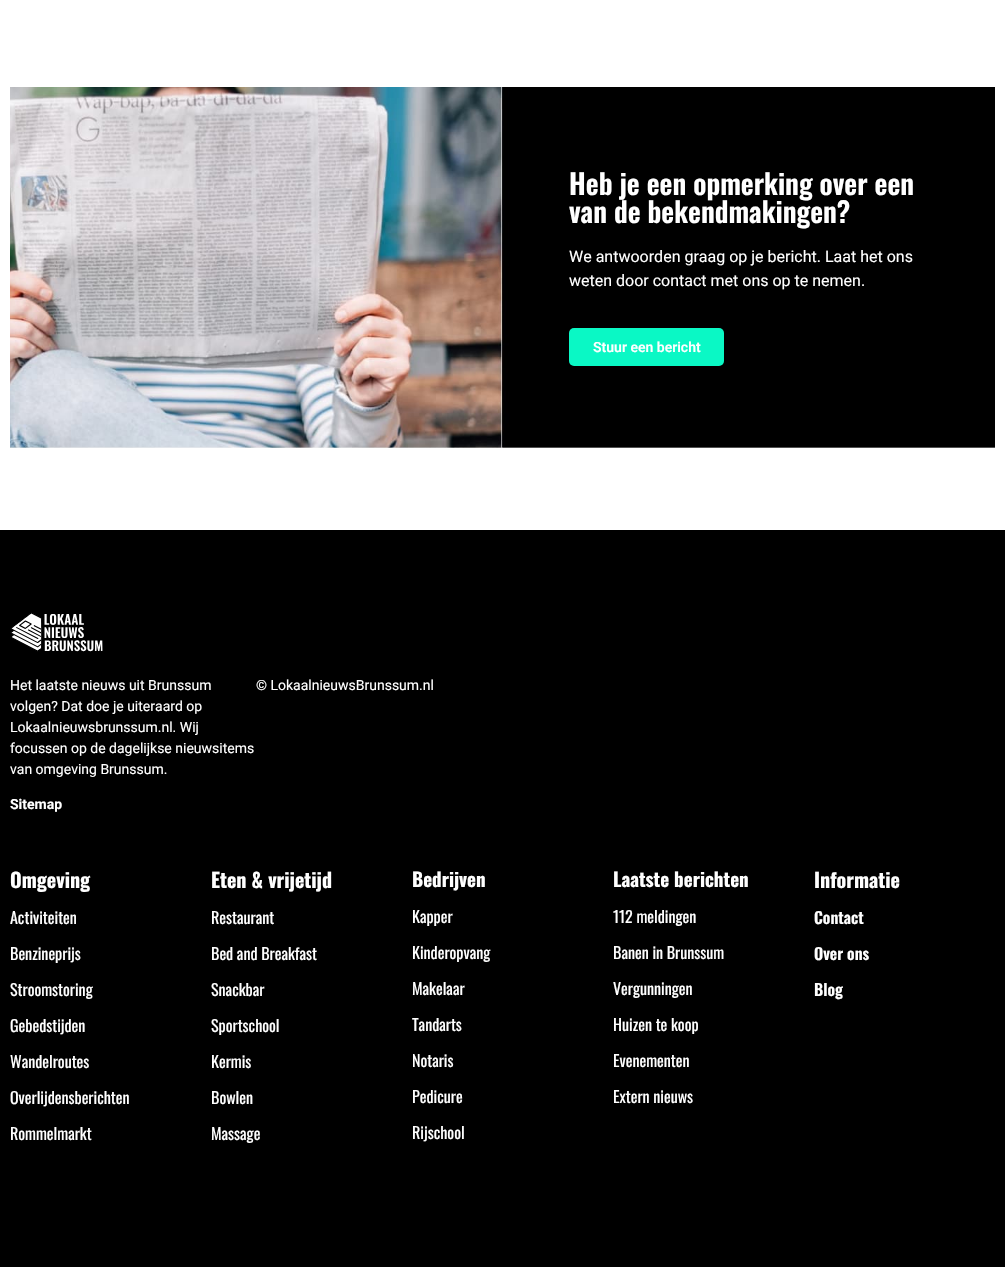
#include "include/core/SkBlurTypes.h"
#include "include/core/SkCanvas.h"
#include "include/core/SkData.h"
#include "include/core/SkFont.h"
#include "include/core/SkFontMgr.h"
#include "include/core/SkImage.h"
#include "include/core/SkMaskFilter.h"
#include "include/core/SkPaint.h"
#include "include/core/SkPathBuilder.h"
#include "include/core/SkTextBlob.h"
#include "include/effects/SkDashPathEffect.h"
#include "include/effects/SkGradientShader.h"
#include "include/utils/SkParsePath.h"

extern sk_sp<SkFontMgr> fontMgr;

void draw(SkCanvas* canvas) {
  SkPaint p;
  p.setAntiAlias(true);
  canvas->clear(SK_ColorWHITE);
  canvas->drawImageRect(SkImages::DeferredFromEncodedData(SkData::MakeFromFileName("images/1.png")), SkRect::MakeLTRB(10, 87, 995, 448), SkSamplingOptions());
  p.setColor(SkColorSetRGB(10, 248, 197));
  canvas->drawRoundRect(SkRect::MakeLTRB(569, 328, 724, 366), 5, 5, p);
  p.setColor(SK_ColorBLACK);
  canvas->drawRect(SkRect::MakeLTRB(0, 530, 1005, 1267), p);
  canvas->drawImageRect(SkImages::DeferredFromEncodedData(SkData::MakeFromFileName("images/2.png")), SkRect::MakeLTRB(10, 612, 103, 652), SkSamplingOptions());
  SkFont font1(fontMgr->matchFamilyStyle("Oswald", SkFontStyle(600, SkFontStyle::kNormal_Width, SkFontStyle::kUpright_Slant)), 28);
  font1.setSubpixel(true);
  p.setColor(SK_ColorWHITE);
  canvas->drawString("Heb je een opmerking over een", 569, 195, font1, p);
  canvas->drawString("van de bekendmakingen?", 569, 223, font1, p);
  SkFont font2(fontMgr->matchFamilyStyle("Roboto", SkFontStyle::Normal()), 16);
  font2.setSubpixel(true);
  canvas->drawString("We antwoorden graag op je bericht. Laat het ons", 569, 262, font2, p);
  canvas->drawString("weten door contact met ons op te nemen.", 569, 286, font2, p);
  SkFont font3(fontMgr->matchFamilyStyle("Roboto", SkFontStyle(600, SkFontStyle::kNormal_Width, SkFontStyle::kUpright_Slant)), 14);
  font3.setSubpixel(true);
  canvas->drawString("Stuur een bericht", 593, 352, font3, p);
  SkFont font4(fontMgr->matchFamilyStyle("Roboto", SkFontStyle::Normal()), 14);
  font4.setSubpixel(true);
  canvas->drawString("Het laatste nieuws uit Brunssum", 10, 690, font4, p);
  canvas->drawString("volgen? Dat doe je uiteraard op", 10, 711, font4, p);
  canvas->drawString("Lokaalnieuwsbrunssum.nl. Wij", 10, 732, font4, p);
  canvas->drawString("focussen op de dagelijkse nieuwsitems", 10, 753, font4, p);
  canvas->drawString("van omgeving Brunssum.", 10, 774, font4, p);
  SkFont font5(fontMgr->matchFamilyStyle("Roboto", SkFontStyle::Bold()), 14);
  font5.setSubpixel(true);
  canvas->drawString("Sitemap", 10, 809, font5, p);
  canvas->drawString("© LokaalnieuwsBrunssum.nl", 256, 690, font4, p);
  SkFont font6(fontMgr->matchFamilyStyle("Oswald", SkFontStyle::Bold()), 20);
  font6.setSubpixel(true);
  canvas->drawString("Omgeving", 10, 888, font6, p);
  SkFont font7(fontMgr->matchFamilyStyle("Oswald", SkFontStyle::Normal()), 16);
  font7.setSubpixel(true);
  canvas->drawString("Activiteiten", 10, 924, font7, p);
  canvas->drawString("Benzineprijs", 10, 960, font7, p);
  canvas->drawString("Stroomstoring", 10, 996, font7, p);
  canvas->drawString("Gebedstijden", 10, 1032, font7, p);
  canvas->drawString("Wandelroutes", 10, 1068, font7, p);
  canvas->drawString("Overlijdensberichten", 10, 1104, font7, p);
  canvas->drawString("Rommelmarkt", 10, 1140, font7, p);
  canvas->drawString("Eten & vrijetijd", 211, 888, font6, p);
  canvas->drawString("Restaurant", 211, 924, font7, p);
  canvas->drawString("Bed and Breakfast", 211, 960, font7, p);
  canvas->drawString("Snackbar", 211, 996, font7, p);
  canvas->drawString("Sportschool", 211, 1032, font7, p);
  canvas->drawString("Kermis", 211, 1068, font7, p);
  canvas->drawString("Bowlen", 211, 1104, font7, p);
  canvas->drawString("Massage", 211, 1140, font7, p);
  SkFont font8(fontMgr->matchFamilyStyle("Oswald", SkFontStyle::Bold()), 19);
  font8.setSubpixel(true);
  canvas->drawString("Bedrijven", 412, 887, font8, p);
  canvas->drawString("Kapper", 412, 923, font7, p);
  canvas->drawString("Kinderopvang", 412, 959, font7, p);
  canvas->drawString("Makelaar", 412, 995, font7, p);
  canvas->drawString("Tandarts", 412, 1031, font7, p);
  canvas->drawString("Notaris", 412, 1067, font7, p);
  canvas->drawString("Pedicure", 412, 1103, font7, p);
  canvas->drawString("Rijschool", 412, 1139, font7, p);
  canvas->drawString("Laatste berichten", 613, 887, font8, p);
  canvas->drawString("112 meldingen", 613, 923, font7, p);
  canvas->drawString("Banen in Brunssum", 613, 959, font7, p);
  canvas->drawString("Vergunningen", 613, 995, font7, p);
  canvas->drawString("Huizen te koop", 613, 1031, font7, p);
  canvas->drawString("Evenementen", 613, 1067, font7, p);
  canvas->drawString("Extern nieuws", 613, 1103, font7, p);
  canvas->drawString("Informatie", 814, 888, font6, p);
  SkFont font9(fontMgr->matchFamilyStyle("Oswald", SkFontStyle(600, SkFontStyle::kNormal_Width, SkFontStyle::kUpright_Slant)), 16);
  font9.setSubpixel(true);
  canvas->drawString("Contact", 814, 924, font9, p);
  canvas->drawString("Over ons", 814, 960, font9, p);
  canvas->drawString("Blog", 814, 996, font9, p);
}
